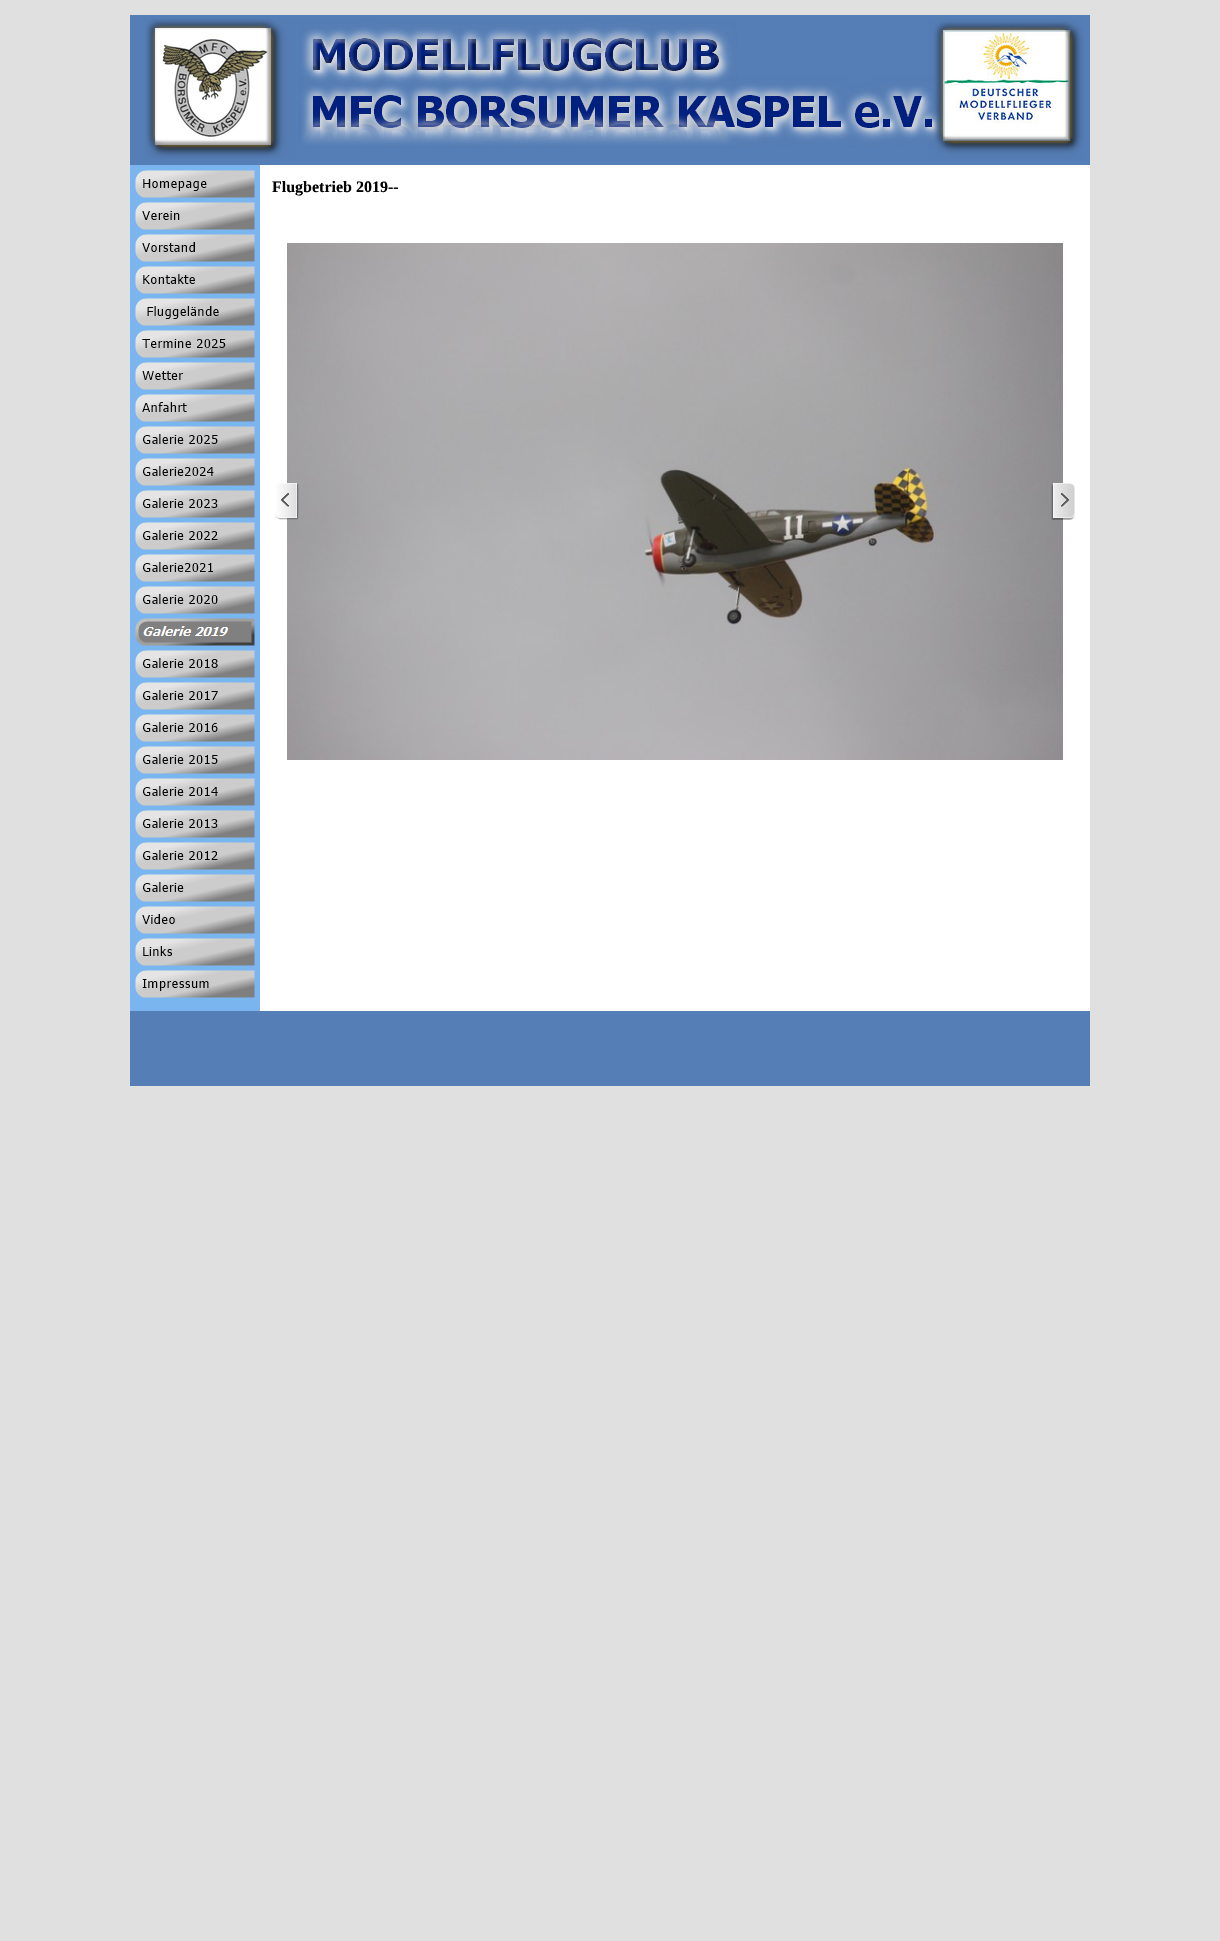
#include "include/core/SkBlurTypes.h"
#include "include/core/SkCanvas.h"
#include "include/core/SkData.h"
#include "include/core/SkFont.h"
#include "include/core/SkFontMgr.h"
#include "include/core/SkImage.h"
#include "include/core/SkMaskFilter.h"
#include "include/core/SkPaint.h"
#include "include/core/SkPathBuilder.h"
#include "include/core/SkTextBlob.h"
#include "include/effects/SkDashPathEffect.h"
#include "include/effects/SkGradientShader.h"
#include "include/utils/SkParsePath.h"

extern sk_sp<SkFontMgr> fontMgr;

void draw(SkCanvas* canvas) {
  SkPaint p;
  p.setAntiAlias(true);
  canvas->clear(SkColorSetRGB(224, 224, 224));
  p.setColor(SkColorSetRGB(86, 126, 182));
  canvas->drawRect(SkRect::MakeLTRB(130, 15, 1090, 165), p);
  canvas->drawImageRect(SkImages::DeferredFromEncodedData(SkData::MakeFromFileName("images/1.png")), SkRect::MakeLTRB(145, 18, 1084, 159), SkSamplingOptions());
  p.setColor(SkColorSetRGB(123, 181, 239));
  canvas->drawRect(SkRect::MakeLTRB(130, 165, 260, 1011), p);
  p.setColor(SK_ColorWHITE);
  canvas->drawRect(SkRect::MakeLTRB(260, 165, 1090, 1011), p);
  canvas->drawImageRect(SkImages::DeferredFromEncodedData(SkData::MakeFromFileName("images/2.png")), SkRect::MakeLTRB(135, 170, 255, 198), SkSamplingOptions());
  canvas->drawImageRect(SkImages::DeferredFromEncodedData(SkData::MakeFromFileName("images/3.png")), SkRect::MakeLTRB(135, 202, 255, 230), SkSamplingOptions());
  canvas->drawImageRect(SkImages::DeferredFromEncodedData(SkData::MakeFromFileName("images/4.png")), SkRect::MakeLTRB(135, 234, 255, 262), SkSamplingOptions());
  canvas->drawImageRect(SkImages::DeferredFromEncodedData(SkData::MakeFromFileName("images/5.png")), SkRect::MakeLTRB(135, 266, 255, 294), SkSamplingOptions());
  canvas->drawImageRect(SkImages::DeferredFromEncodedData(SkData::MakeFromFileName("images/6.png")), SkRect::MakeLTRB(135, 298, 255, 326), SkSamplingOptions());
  canvas->drawImageRect(SkImages::DeferredFromEncodedData(SkData::MakeFromFileName("images/7.png")), SkRect::MakeLTRB(135, 330, 255, 358), SkSamplingOptions());
  canvas->drawImageRect(SkImages::DeferredFromEncodedData(SkData::MakeFromFileName("images/8.png")), SkRect::MakeLTRB(135, 362, 255, 390), SkSamplingOptions());
  canvas->drawImageRect(SkImages::DeferredFromEncodedData(SkData::MakeFromFileName("images/9.png")), SkRect::MakeLTRB(135, 394, 255, 422), SkSamplingOptions());
  canvas->drawImageRect(SkImages::DeferredFromEncodedData(SkData::MakeFromFileName("images/10.png")), SkRect::MakeLTRB(135, 426, 255, 454), SkSamplingOptions());
  canvas->drawImageRect(SkImages::DeferredFromEncodedData(SkData::MakeFromFileName("images/11.png")), SkRect::MakeLTRB(135, 458, 255, 486), SkSamplingOptions());
  canvas->drawImageRect(SkImages::DeferredFromEncodedData(SkData::MakeFromFileName("images/12.png")), SkRect::MakeLTRB(135, 490, 255, 518), SkSamplingOptions());
  canvas->drawImageRect(SkImages::DeferredFromEncodedData(SkData::MakeFromFileName("images/13.png")), SkRect::MakeLTRB(135, 522, 255, 550), SkSamplingOptions());
  canvas->drawImageRect(SkImages::DeferredFromEncodedData(SkData::MakeFromFileName("images/14.png")), SkRect::MakeLTRB(135, 554, 255, 582), SkSamplingOptions());
  canvas->drawImageRect(SkImages::DeferredFromEncodedData(SkData::MakeFromFileName("images/15.png")), SkRect::MakeLTRB(135, 586, 255, 614), SkSamplingOptions());
  canvas->drawImageRect(SkImages::DeferredFromEncodedData(SkData::MakeFromFileName("images/16.png")), SkRect::MakeLTRB(135, 618, 255, 646), SkSamplingOptions());
  canvas->drawImageRect(SkImages::DeferredFromEncodedData(SkData::MakeFromFileName("images/17.png")), SkRect::MakeLTRB(135, 650, 255, 678), SkSamplingOptions());
  canvas->drawImageRect(SkImages::DeferredFromEncodedData(SkData::MakeFromFileName("images/18.png")), SkRect::MakeLTRB(135, 682, 255, 710), SkSamplingOptions());
  canvas->drawImageRect(SkImages::DeferredFromEncodedData(SkData::MakeFromFileName("images/19.png")), SkRect::MakeLTRB(135, 714, 255, 742), SkSamplingOptions());
  canvas->drawImageRect(SkImages::DeferredFromEncodedData(SkData::MakeFromFileName("images/20.png")), SkRect::MakeLTRB(135, 746, 255, 774), SkSamplingOptions());
  canvas->drawImageRect(SkImages::DeferredFromEncodedData(SkData::MakeFromFileName("images/21.png")), SkRect::MakeLTRB(135, 778, 255, 806), SkSamplingOptions());
  canvas->drawImageRect(SkImages::DeferredFromEncodedData(SkData::MakeFromFileName("images/22.png")), SkRect::MakeLTRB(135, 810, 255, 838), SkSamplingOptions());
  canvas->drawImageRect(SkImages::DeferredFromEncodedData(SkData::MakeFromFileName("images/23.png")), SkRect::MakeLTRB(135, 842, 255, 870), SkSamplingOptions());
  canvas->drawImageRect(SkImages::DeferredFromEncodedData(SkData::MakeFromFileName("images/24.png")), SkRect::MakeLTRB(135, 874, 255, 902), SkSamplingOptions());
  canvas->drawImageRect(SkImages::DeferredFromEncodedData(SkData::MakeFromFileName("images/25.png")), SkRect::MakeLTRB(135, 906, 255, 934), SkSamplingOptions());
  canvas->drawImageRect(SkImages::DeferredFromEncodedData(SkData::MakeFromFileName("images/26.png")), SkRect::MakeLTRB(135, 938, 255, 966), SkSamplingOptions());
  canvas->drawImageRect(SkImages::DeferredFromEncodedData(SkData::MakeFromFileName("images/27.png")), SkRect::MakeLTRB(135, 970, 255, 998), SkSamplingOptions());
  canvas->drawImageRect(SkImages::DeferredFromEncodedData(SkData::MakeFromFileName("images/28.png")), SkRect::MakeLTRB(287, 243, 1063, 760), SkSamplingOptions());
  canvas->drawImageRect(SkImages::DeferredFromEncodedData(SkData::MakeFromFileName("images/29.png")), SkRect::MakeLTRB(275, 483, 299, 520), SkSamplingOptions());
  canvas->drawImageRect(SkImages::DeferredFromEncodedData(SkData::MakeFromFileName("images/30.png")), SkRect::MakeLTRB(1051, 483, 1075, 520), SkSamplingOptions());
  p.setColor(SkColorSetRGB(86, 126, 182));
  canvas->drawRect(SkRect::MakeLTRB(130, 1011, 1090, 1086), p);
  SkFont font1(fontMgr->matchFamilyStyle("Liberation Serif", SkFontStyle::Bold()), 16);
  font1.setSubpixel(true);
  p.setColor(SK_ColorBLACK);
  canvas->drawString("Flugbetrieb 2019--", 272, 192, font1, p);
}
